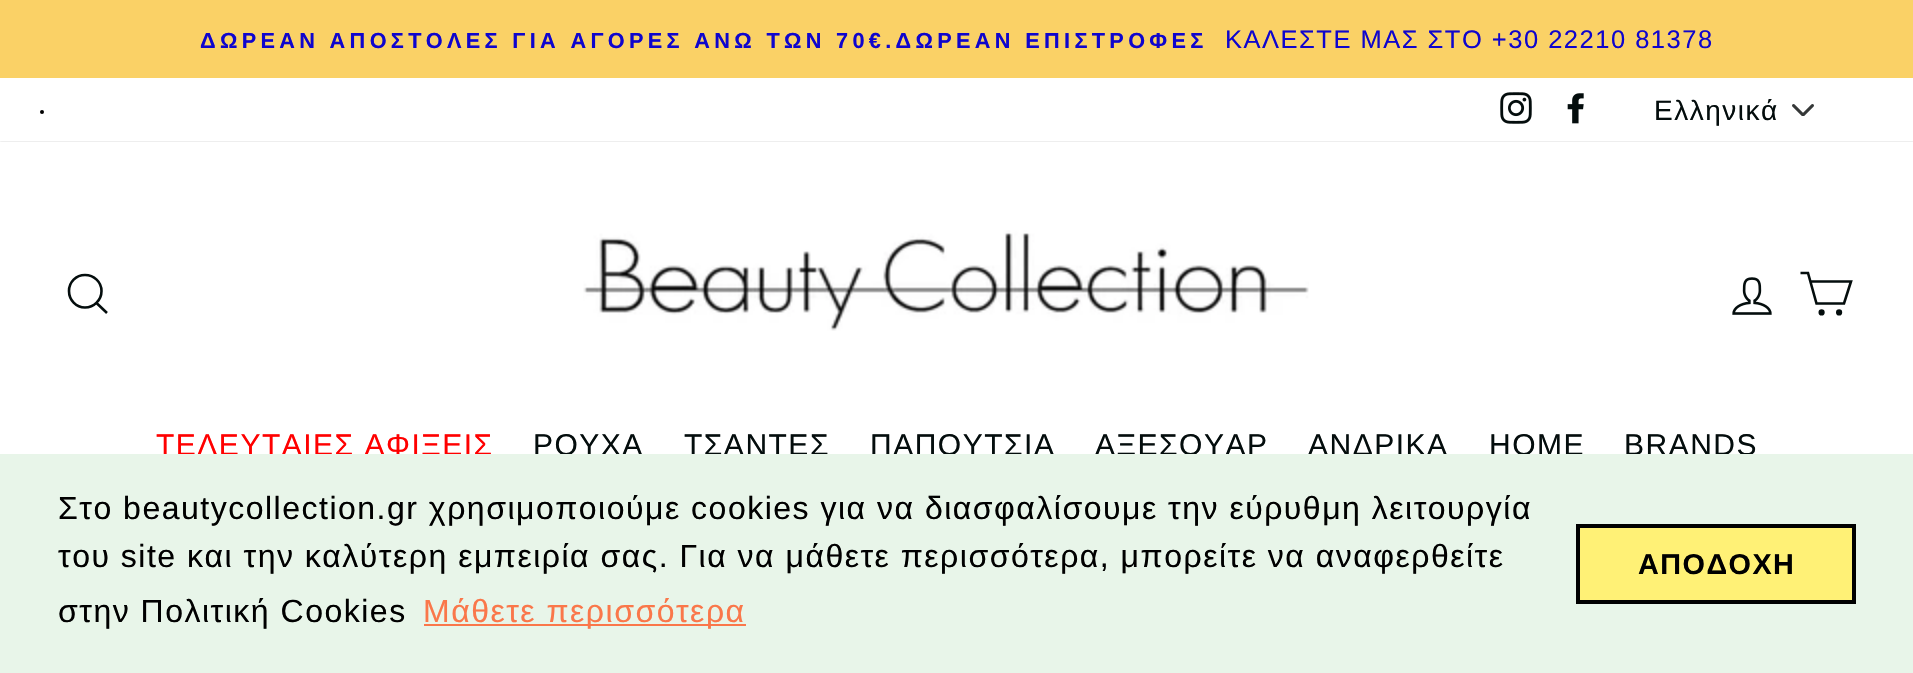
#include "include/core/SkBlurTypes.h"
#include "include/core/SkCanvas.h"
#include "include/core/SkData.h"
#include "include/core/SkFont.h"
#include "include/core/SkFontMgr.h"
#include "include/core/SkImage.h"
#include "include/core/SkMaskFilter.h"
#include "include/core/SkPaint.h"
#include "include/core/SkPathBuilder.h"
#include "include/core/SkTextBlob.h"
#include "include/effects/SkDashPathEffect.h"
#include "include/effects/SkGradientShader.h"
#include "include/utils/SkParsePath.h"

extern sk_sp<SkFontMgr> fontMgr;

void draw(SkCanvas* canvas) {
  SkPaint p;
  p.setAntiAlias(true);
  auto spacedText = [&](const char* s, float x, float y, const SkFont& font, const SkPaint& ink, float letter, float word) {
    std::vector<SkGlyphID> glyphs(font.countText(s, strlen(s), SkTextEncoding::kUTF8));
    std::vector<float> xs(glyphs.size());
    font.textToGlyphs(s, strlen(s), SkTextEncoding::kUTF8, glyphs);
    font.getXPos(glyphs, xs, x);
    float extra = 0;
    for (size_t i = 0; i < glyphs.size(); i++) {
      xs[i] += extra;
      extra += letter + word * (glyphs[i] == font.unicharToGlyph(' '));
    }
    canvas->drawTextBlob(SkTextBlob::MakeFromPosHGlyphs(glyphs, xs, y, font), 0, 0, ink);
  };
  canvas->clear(SK_ColorWHITE);
  p.setColor(SK_ColorBLACK);
  canvas->drawCircle(42, 112, 2, p);
  p.setColor(SkColorSetRGB(250, 209, 102));
  canvas->drawRect(SkRect::MakeLTRB(0, 0, 1913, 78), p);
  canvas->drawImageRect(SkImages::DeferredFromEncodedData(SkData::MakeFromFileName("images/1.png")), SkRect::MakeLTRB(1500, 92, 1532, 124), SkSamplingOptions());
  canvas->drawImageRect(SkImages::DeferredFromEncodedData(SkData::MakeFromFileName("images/2.png")), SkRect::MakeLTRB(1567, 93, 1584, 124), SkSamplingOptions());
  canvas->drawImageRect(SkImages::DeferredFromEncodedData(SkData::MakeFromFileName("images/3.png")), SkRect::MakeLTRB(1792, 104, 1814, 116), SkSamplingOptions());
  canvas->save();
  canvas->clipRect(SkRect::MakeLTRB(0, 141, 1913, 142));
  p.setColor(SkColorSetARGB(51, 0, 0, 0));
  p.setMaskFilter(SkMaskFilter::MakeBlur(kNormal_SkBlurStyle, 1));
  canvas->drawRect(SkRect::MakeLTRB(0, 142, 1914, 598), p);
  p.setMaskFilter(nullptr);
  canvas->restore();
  p.setStyle(SkPaint::kStroke_Style);
  p.setStrokeWidth(2.6f);
  p.setColor(SkColorSetRGB(4, 13, 13));
  canvas->drawPath(SkPathBuilder().moveTo(101.5f, 291).cubicTo(101.5f, 300, 94, 307.5f, 85, 307.5f).cubicTo(76, 307.5f, 69, 300, 69, 291).cubicTo(69, 282, 76, 275, 85, 275).cubicTo(94, 275, 101.5f, 282, 101.5f, 291).close().moveTo(107, 313).lineTo(96.5f, 303).detach(), p);
  canvas->drawImageRect(SkImages::DeferredFromEncodedData(SkData::MakeFromFileName("images/4.png")), SkRect::MakeLTRB(583, 230, 1309, 331), SkSamplingOptions());
  canvas->drawImageRect(SkImages::DeferredFromEncodedData(SkData::MakeFromFileName("images/5.png")), SkRect::MakeLTRB(1732, 277, 1772, 315), SkSamplingOptions());
  canvas->drawPath(SkPathBuilder().moveTo(1810, 281.5f).lineTo(1851, 281.5f).lineTo(1844, 303.5f).lineTo(1816.5f, 303.5f).lineTo(1808, 273).lineTo(1800.5f, 273).detach(), p);
  p.setStyle(SkPaint::kFill_Style);
  canvas->drawCircle(1821.6f, 312.4f, 1.8f, p);
  p.setStyle(SkPaint::kStroke_Style);
  canvas->drawCircle(1821.6f, 312.4f, 1.8f, p);
  p.setStyle(SkPaint::kFill_Style);
  canvas->drawCircle(1839.1f, 312.4f, 1.8f, p);
  p.setStyle(SkPaint::kStroke_Style);
  canvas->drawCircle(1839.1f, 312.4f, 1.8f, p);
  SkFont font1(fontMgr->matchFamilyStyle("Liberation Sans", SkFontStyle::Bold()), 21.7f);
  font1.setSubpixel(true);
  p.setStyle(SkPaint::kFill_Style);
  p.setColor(SkColorSetRGB(15, 5, 205));
  spacedText("ΔΩΡΕΑΝ ΑΠΟΣΤΟΛΕΣ ΓΙΑ ΑΓΟΡΕΣ ΑΝΩ ΤΩΝ 70€.ΔΩΡΕΑΝ ΕΠΙΣΤΡΟΦΕΣ", 200, 48, font1, p, 4.33f, 0);
  SkFont font2(fontMgr->matchFamilyStyle("Liberation Sans", SkFontStyle::Normal()), 25.5f);
  font2.setSubpixel(true);
  spacedText("ΚΑΛΕΣΤΕ ΜΑΣ ΣΤΟ +30 22210 81378", 1225, 48, font2, p, 1.5f, 0);
  SkFont font3(fontMgr->matchFamilyStyle("Liberation Sans", SkFontStyle::Normal()), 28);
  font3.setSubpixel(true);
  p.setColor(SkColorSetRGB(4, 13, 13));
  spacedText("Ελληνικά", 1654, 120, font3, p, 1.5f, 0);
  SkFont font4(fontMgr->matchFamilyStyle("Liberation Sans", SkFontStyle::Normal()), 30);
  font4.setSubpixel(true);
  p.setColor(SkColorSetRGB(255, 0, 0));
  spacedText("ΤΕΛΕΥΤΑΙΕΣ ΑΦΙΞΕΙΣ", 156, 455, font4, p, 1.5f, 0);
  p.setColor(SkColorSetRGB(4, 13, 13));
  spacedText("ΡΟΥΧΑ", 533, 455, font4, p, 1.5f, 0);
  spacedText("ΤΣΑΝΤΕΣ", 684, 455, font4, p, 1.5f, 0);
  spacedText("ΠΑΠΟΥΤΣΙΑ", 870, 455, font4, p, 1.5f, 0);
  spacedText("ΑΞΕΣΟΥΑΡ", 1095, 455, font4, p, 1.5f, 0);
  spacedText("ΑΝΔΡΙΚΑ", 1308, 455, font4, p, 1.5f, 0);
  spacedText("HOME", 1489, 455, font4, p, 1.5f, 0);
  spacedText("BRANDS", 1624, 455, font4, p, 1.5f, 0);
  p.setColor(SkColorSetRGB(232, 245, 233));
  canvas->drawRect(SkRect::MakeLTRB(0, 454, 1913, 673), p);
  SkFont font5(fontMgr->matchFamilyStyle("Liberation Sans", SkFontStyle::Normal()), 32);
  font5.setSubpixel(true);
  p.setColor(SK_ColorBLACK);
  spacedText("Στο beautycollection.gr χρησιμοποιούμε cookies για να διασφαλίσουμε την εύρυθμη λειτουργία", 58, 519, font5, p, 1.5f, 0);
  spacedText("του site και την καλύτερη εμπειρία σας. Για να μάθετε περισσότερα, μπορείτε να αναφερθείτε", 58, 567, font5, p, 1.5f, 0);
  spacedText("στην Πολιτική Cookies", 58, 622, font5, p, 1.5f, 0);
  p.setColor(SkColorSetRGB(250, 119, 74));
  canvas->drawRect(SkRect::MakeLTRB(424, 624, 746, 626), p);
  spacedText("Μάθετε περισσότερα", 423, 622, font5, p, 1.5f, 0);
  p.setColor(SkColorSetRGB(255, 241, 118));
  canvas->drawRect(SkRect::MakeLTRB(1578, 526, 1854, 602), p);
  p.setStyle(SkPaint::kStroke_Style);
  p.setStrokeWidth(4);
  p.setColor(SK_ColorBLACK);
  canvas->drawRect(SkRect::MakeLTRB(1578, 526, 1854, 602), p);
  SkFont font6(fontMgr->matchFamilyStyle("Liberation Sans", SkFontStyle::Bold()), 28.75f);
  font6.setSubpixel(true);
  p.setStyle(SkPaint::kFill_Style);
  spacedText("ΑΠΟΔΟΧΗ", 1638, 574, font6, p, 1.5f, 0);
}
